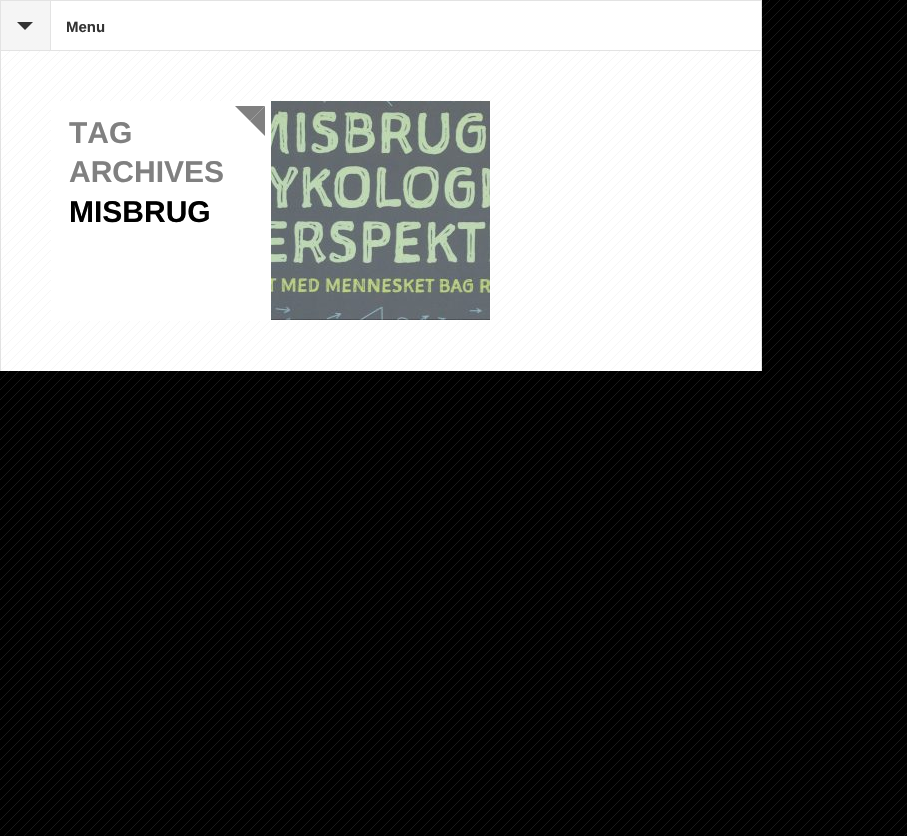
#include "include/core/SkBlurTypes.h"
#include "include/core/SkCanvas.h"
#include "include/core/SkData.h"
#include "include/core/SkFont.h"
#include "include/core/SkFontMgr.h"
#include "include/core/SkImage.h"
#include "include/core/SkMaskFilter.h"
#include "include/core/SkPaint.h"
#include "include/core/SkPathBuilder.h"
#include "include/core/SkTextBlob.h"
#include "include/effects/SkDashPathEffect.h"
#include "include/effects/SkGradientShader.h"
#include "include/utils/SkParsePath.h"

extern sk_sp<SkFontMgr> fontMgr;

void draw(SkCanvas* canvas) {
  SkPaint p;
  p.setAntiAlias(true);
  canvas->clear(SK_ColorBLACK);
  canvas->drawImageRect(SkImages::DeferredFromEncodedData(SkData::MakeFromFileName("images/1.png")), SkRect::MakeLTRB(0, 0, 907, 836), SkSamplingOptions());
  p.setColor(SK_ColorWHITE);
  canvas->drawRect(SkRect::MakeLTRB(1, 51, 761, 371), p);
  canvas->drawImageRect(SkImages::DeferredFromEncodedData(SkData::MakeFromFileName("images/2.png")), SkRect::MakeLTRB(1, 51, 761, 371), SkSamplingOptions());
  p.setColor(SkColorSetRGB(227, 227, 227));
  canvas->drawRect(SkRect::MakeLTRB(761, 0, 762, 371), p);
  canvas->drawRect(SkRect::MakeLTRB(0, 0, 1, 371), p);
  p.setColor(SK_ColorWHITE);
  canvas->drawRect(SkRect::MakeLTRB(51, 1, 761, 50), p);
  p.setColor(SkColorSetRGB(227, 227, 227));
  canvas->drawRect(SkRect::MakeLTRB(1, 0, 761, 1), p);
  canvas->drawRect(SkRect::MakeLTRB(1, 50, 761, 51), p);
  p.setColor(SkColorSetRGB(245, 245, 245));
  canvas->drawRect(SkRect::MakeLTRB(1, 1, 50, 50), p);
  p.setColor(SkColorSetRGB(227, 227, 227));
  canvas->drawRect(SkRect::MakeLTRB(50, 1, 51, 50), p);
  p.setColor(SkColorSetRGB(51, 51, 51));
  canvas->drawPath(SkPathBuilder().moveTo(17, 22).lineTo(33, 22).lineTo(25, 30).close().detach(), p);
  p.setColor(SK_ColorWHITE);
  canvas->drawRect(SkRect::MakeLTRB(51, 101, 491, 321), p);
  p.setColor(SkColorSetRGB(128, 128, 128));
  canvas->drawPath(SkPathBuilder().moveTo(235, 106).lineTo(265, 106).lineTo(250, 121).close().detach(), p);
  canvas->drawPath(SkPathBuilder().moveTo(265, 106).lineTo(265, 136).lineTo(250, 121).close().detach(), p);
  canvas->drawImageRect(SkImages::DeferredFromEncodedData(SkData::MakeFromFileName("images/3.png")), SkRect::MakeLTRB(271, 101, 490, 320), SkSamplingOptions());
  SkFont font1(fontMgr->matchFamilyStyle("Liberation Sans", SkFontStyle::Bold()), 15);
  font1.setSubpixel(true);
  p.setColor(SkColorSetRGB(51, 51, 51));
  canvas->drawString("Menu", 66, 32, font1, p);
  SkFont font2(fontMgr->matchFamilyStyle("Liberation Sans", SkFontStyle::Bold()), 30);
  font2.setSubpixel(true);
  p.setColor(SkColorSetRGB(128, 128, 128));
  canvas->drawString("TAG", 69, 143, font2, p);
  canvas->drawString("ARCHIVES", 69, 182, font2, p);
  p.setColor(SK_ColorBLACK);
  canvas->drawString("MISBRUG", 69, 222, font2, p);
}
